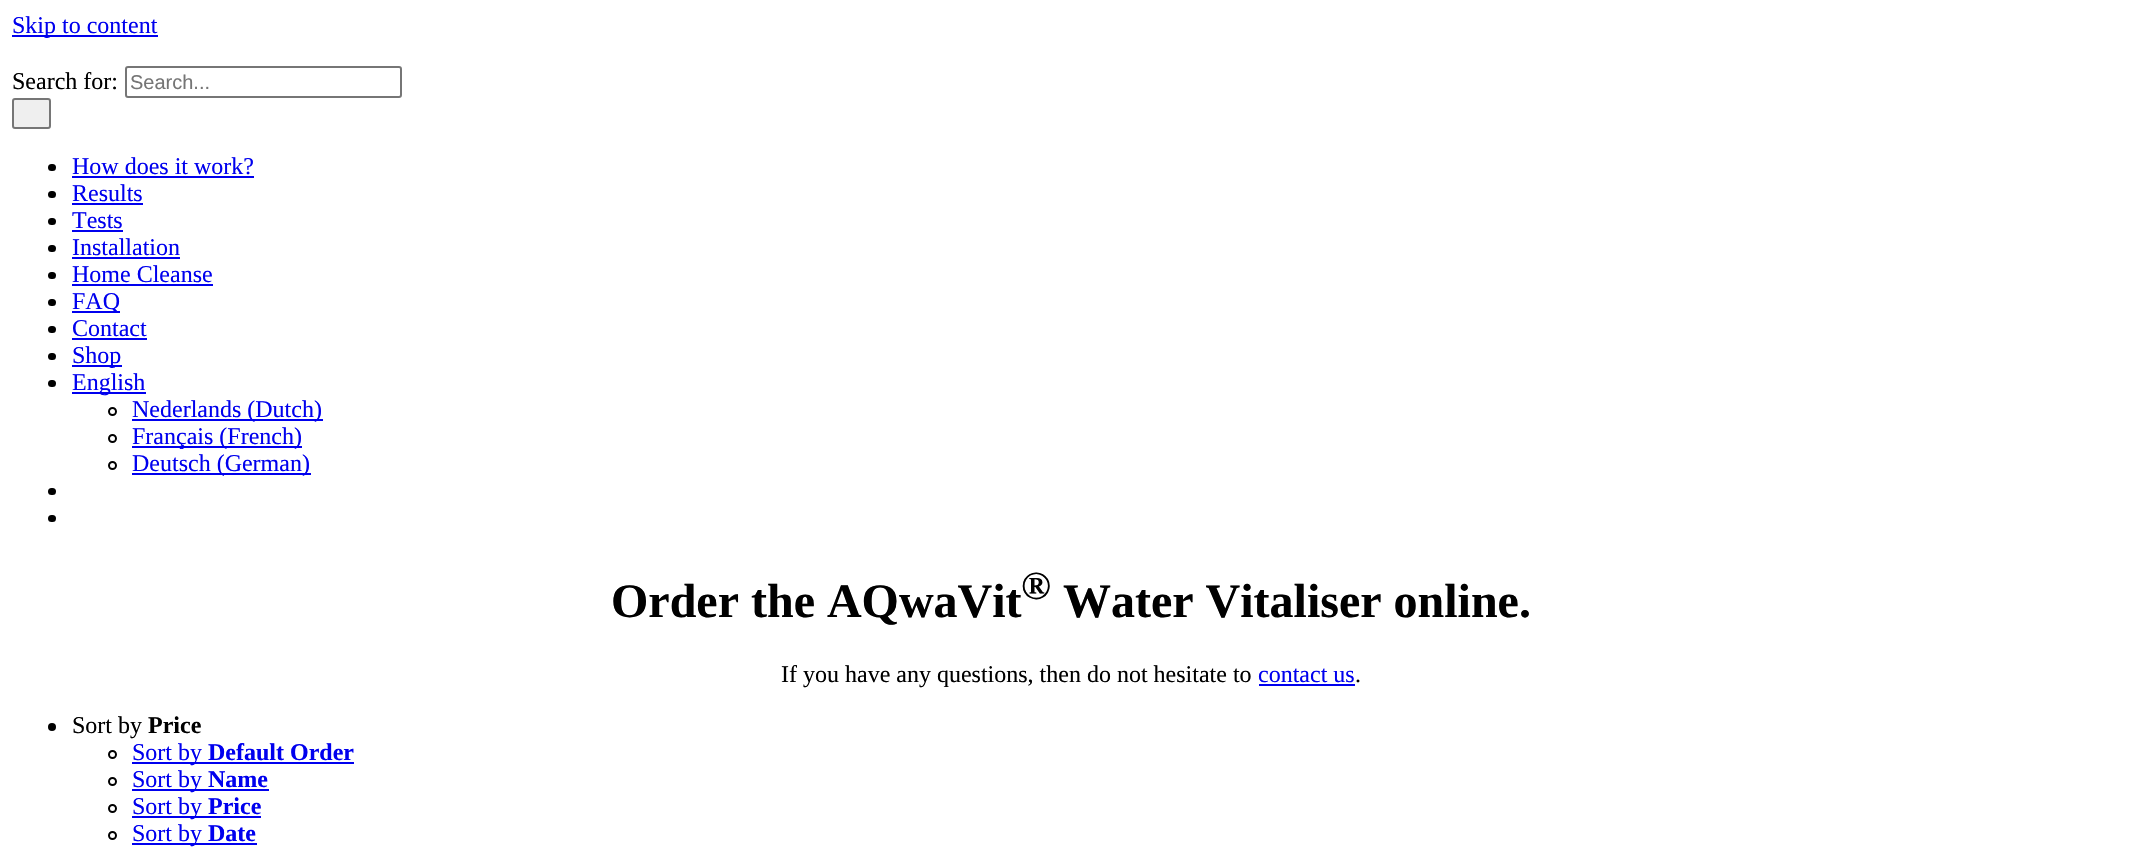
#include "include/core/SkBlurTypes.h"
#include "include/core/SkCanvas.h"
#include "include/core/SkData.h"
#include "include/core/SkFont.h"
#include "include/core/SkFontMgr.h"
#include "include/core/SkImage.h"
#include "include/core/SkMaskFilter.h"
#include "include/core/SkPaint.h"
#include "include/core/SkPathBuilder.h"
#include "include/core/SkTextBlob.h"
#include "include/effects/SkDashPathEffect.h"
#include "include/effects/SkGradientShader.h"
#include "include/utils/SkParsePath.h"

extern sk_sp<SkFontMgr> fontMgr;

void draw(SkCanvas* canvas) {
  SkPaint p;
  p.setAntiAlias(true);
  canvas->clear(SK_ColorWHITE);
  p.setColor(SkColorSetRGB(0, 0, 238));
  canvas->drawRect(SkRect::MakeLTRB(12, 35, 158, 37), p);
  p.setStyle(SkPaint::kStroke_Style);
  p.setStrokeWidth(2);
  p.setColor(SkColorSetRGB(118, 118, 118));
  canvas->drawRoundRect(SkRect::MakeLTRB(126, 67, 401, 97), 2, 2, p);
  p.setStyle(SkPaint::kFill_Style);
  p.setColor(SkColorSetRGB(239, 239, 239));
  canvas->drawRoundRect(SkRect::MakeLTRB(13, 99, 50, 128), 2, 2, p);
  p.setStyle(SkPaint::kStroke_Style);
  p.setColor(SkColorSetRGB(118, 118, 118));
  canvas->drawRoundRect(SkRect::MakeLTRB(13, 99, 50, 128), 2, 2, p);
  p.setStyle(SkPaint::kFill_Style);
  p.setColor(SK_ColorBLACK);
  canvas->drawRoundRect(SkRect::MakeLTRB(48, 164, 56, 171), 3.5f, 3.5f, p);
  p.setColor(SkColorSetRGB(0, 0, 238));
  canvas->drawRect(SkRect::MakeLTRB(72, 176, 254, 178), p);
  p.setColor(SK_ColorBLACK);
  canvas->drawRoundRect(SkRect::MakeLTRB(48, 191, 56, 198), 3.5f, 3.5f, p);
  p.setColor(SkColorSetRGB(0, 0, 238));
  canvas->drawRect(SkRect::MakeLTRB(72, 203, 143, 205), p);
  p.setColor(SK_ColorBLACK);
  canvas->drawRoundRect(SkRect::MakeLTRB(48, 218, 56, 225), 3.5f, 3.5f, p);
  p.setColor(SkColorSetRGB(0, 0, 238));
  canvas->drawRect(SkRect::MakeLTRB(72, 230, 123, 232), p);
  p.setColor(SK_ColorBLACK);
  canvas->drawRoundRect(SkRect::MakeLTRB(48, 245, 56, 252), 3.5f, 3.5f, p);
  p.setColor(SkColorSetRGB(0, 0, 238));
  canvas->drawRect(SkRect::MakeLTRB(72, 257, 180, 259), p);
  p.setColor(SK_ColorBLACK);
  canvas->drawRoundRect(SkRect::MakeLTRB(48, 272, 56, 279), 3.5f, 3.5f, p);
  p.setColor(SkColorSetRGB(0, 0, 238));
  canvas->drawRect(SkRect::MakeLTRB(72, 284, 213, 286), p);
  p.setColor(SK_ColorBLACK);
  canvas->drawRoundRect(SkRect::MakeLTRB(48, 299, 56, 306), 3.5f, 3.5f, p);
  p.setColor(SkColorSetRGB(0, 0, 238));
  canvas->drawRect(SkRect::MakeLTRB(72, 311, 120, 313), p);
  p.setColor(SK_ColorBLACK);
  canvas->drawRoundRect(SkRect::MakeLTRB(48, 326, 56, 333), 3.5f, 3.5f, p);
  p.setColor(SkColorSetRGB(0, 0, 238));
  canvas->drawRect(SkRect::MakeLTRB(72, 338, 147, 340), p);
  p.setColor(SK_ColorBLACK);
  canvas->drawRoundRect(SkRect::MakeLTRB(48, 353, 56, 360), 3.5f, 3.5f, p);
  p.setColor(SkColorSetRGB(0, 0, 238));
  canvas->drawRect(SkRect::MakeLTRB(72, 365, 122, 367), p);
  p.setColor(SK_ColorBLACK);
  canvas->drawRoundRect(SkRect::MakeLTRB(48, 380, 56, 387), 3.5f, 3.5f, p);
  p.setColor(SkColorSetRGB(0, 0, 238));
  canvas->drawRect(SkRect::MakeLTRB(72, 392, 146, 394), p);
  p.setStyle(SkPaint::kStroke_Style);
  p.setColor(SK_ColorBLACK);
  canvas->drawCircle(112.5f, 411.5f, 3.5f, p);
  p.setStyle(SkPaint::kFill_Style);
  p.setColor(SkColorSetRGB(0, 0, 238));
  canvas->drawRect(SkRect::MakeLTRB(132, 419, 323, 421), p);
  p.setStyle(SkPaint::kStroke_Style);
  p.setColor(SK_ColorBLACK);
  canvas->drawCircle(112.5f, 438.5f, 3.5f, p);
  p.setStyle(SkPaint::kFill_Style);
  p.setColor(SkColorSetRGB(0, 0, 238));
  canvas->drawRect(SkRect::MakeLTRB(132, 446, 302, 448), p);
  p.setStyle(SkPaint::kStroke_Style);
  p.setColor(SK_ColorBLACK);
  canvas->drawCircle(112.5f, 465.5f, 3.5f, p);
  p.setStyle(SkPaint::kFill_Style);
  p.setColor(SkColorSetRGB(0, 0, 238));
  canvas->drawRect(SkRect::MakeLTRB(132, 473, 311, 475), p);
  p.setColor(SK_ColorBLACK);
  canvas->drawRoundRect(SkRect::MakeLTRB(48, 488, 56, 495), 3.5f, 3.5f, p);
  canvas->drawRoundRect(SkRect::MakeLTRB(48, 515, 56, 522), 3.5f, 3.5f, p);
  p.setColor(SkColorSetRGB(0, 0, 238));
  canvas->drawRect(SkRect::MakeLTRB(1259, 684, 1355, 686), p);
  p.setColor(SK_ColorBLACK);
  canvas->drawCircle(52, 727, 4, p);
  p.setStyle(SkPaint::kStroke_Style);
  canvas->drawCircle(112.5f, 754.5f, 3.5f, p);
  p.setStyle(SkPaint::kFill_Style);
  p.setColor(SkColorSetRGB(0, 0, 238));
  canvas->drawRect(SkRect::MakeLTRB(132, 762, 354, 764), p);
  p.setStyle(SkPaint::kStroke_Style);
  p.setColor(SK_ColorBLACK);
  canvas->drawCircle(112.5f, 781.5f, 3.5f, p);
  p.setStyle(SkPaint::kFill_Style);
  p.setColor(SkColorSetRGB(0, 0, 238));
  canvas->drawRect(SkRect::MakeLTRB(132, 789, 269, 791), p);
  p.setStyle(SkPaint::kStroke_Style);
  p.setColor(SK_ColorBLACK);
  canvas->drawCircle(112.5f, 808.5f, 3.5f, p);
  p.setStyle(SkPaint::kFill_Style);
  p.setColor(SkColorSetRGB(0, 0, 238));
  canvas->drawRect(SkRect::MakeLTRB(132, 816, 261, 818), p);
  p.setStyle(SkPaint::kStroke_Style);
  p.setColor(SK_ColorBLACK);
  canvas->drawCircle(112.5f, 835.5f, 3.5f, p);
  p.setStyle(SkPaint::kFill_Style);
  p.setColor(SkColorSetRGB(0, 0, 238));
  canvas->drawRect(SkRect::MakeLTRB(132, 843, 257, 845), p);
  SkFont font1(fontMgr->matchFamilyStyle("Liberation Serif", SkFontStyle::Normal()), 24);
  font1.setSubpixel(true);
  canvas->drawString("Skip to content", 12, 33, font1, p);
  p.setColor(SK_ColorBLACK);
  canvas->drawString("Search for:", 12, 89, font1, p);
  SkFont font2(fontMgr->matchFamilyStyle("Liberation Sans", SkFontStyle::Normal()), 20);
  font2.setSubpixel(true);
  p.setColor(SkColorSetRGB(117, 117, 117));
  canvas->drawString("Search...", 130, 89, font2, p);
  p.setColor(SkColorSetRGB(0, 0, 238));
  canvas->drawString("How does it work?", 72, 174, font1, p);
  canvas->drawString("Results", 72, 201, font1, p);
  canvas->drawString("Tests", 72, 228, font1, p);
  canvas->drawString("Installation", 72, 255, font1, p);
  canvas->drawString("Home Cleanse", 72, 282, font1, p);
  canvas->drawString("FAQ", 72, 309, font1, p);
  canvas->drawString("Contact", 72, 336, font1, p);
  canvas->drawString("Shop", 72, 363, font1, p);
  canvas->drawString("English", 72, 390, font1, p);
  canvas->drawString("Nederlands (Dutch)", 132, 417, font1, p);
  canvas->drawString("Français (French)", 132, 444, font1, p);
  canvas->drawString("Deutsch (German)", 132, 471, font1, p);
  SkFont font3(fontMgr->matchFamilyStyle("Liberation Serif", SkFontStyle::Bold()), 48);
  font3.setSubpixel(true);
  p.setColor(SK_ColorBLACK);
  canvas->drawString("Order the AQwaVit", 611, 617, font3, p);
  SkFont font4(fontMgr->matchFamilyStyle("Liberation Serif", SkFontStyle::Bold()), 40);
  font4.setSubpixel(true);
  canvas->drawString("®", 1021, 599, font4, p);
  canvas->drawString("Water Vitaliser online.", 1063, 617, font3, p);
  canvas->drawString("If you have any questions, then do not hesitate to", 781, 682, font1, p);
  p.setColor(SkColorSetRGB(0, 0, 238));
  canvas->drawString("contact us", 1258, 682, font1, p);
  p.setColor(SK_ColorBLACK);
  canvas->drawString(".", 1355, 682, font1, p);
  canvas->drawString("Sort by", 72, 733, font1, p);
  SkFont font5(fontMgr->matchFamilyStyle("Liberation Serif", SkFontStyle::Bold()), 24);
  font5.setSubpixel(true);
  canvas->drawString("Price", 148, 733, font5, p);
  p.setColor(SkColorSetRGB(0, 0, 238));
  canvas->drawString("Sort by", 132, 760, font1, p);
  canvas->drawString("Default Order", 208, 760, font5, p);
  canvas->drawString("Sort by", 132, 787, font1, p);
  canvas->drawString("Name", 208, 787, font5, p);
  canvas->drawString("Sort by", 132, 814, font1, p);
  canvas->drawString("Price", 208, 814, font5, p);
  canvas->drawString("Sort by", 132, 841, font1, p);
  canvas->drawString("Date", 208, 841, font5, p);
}
